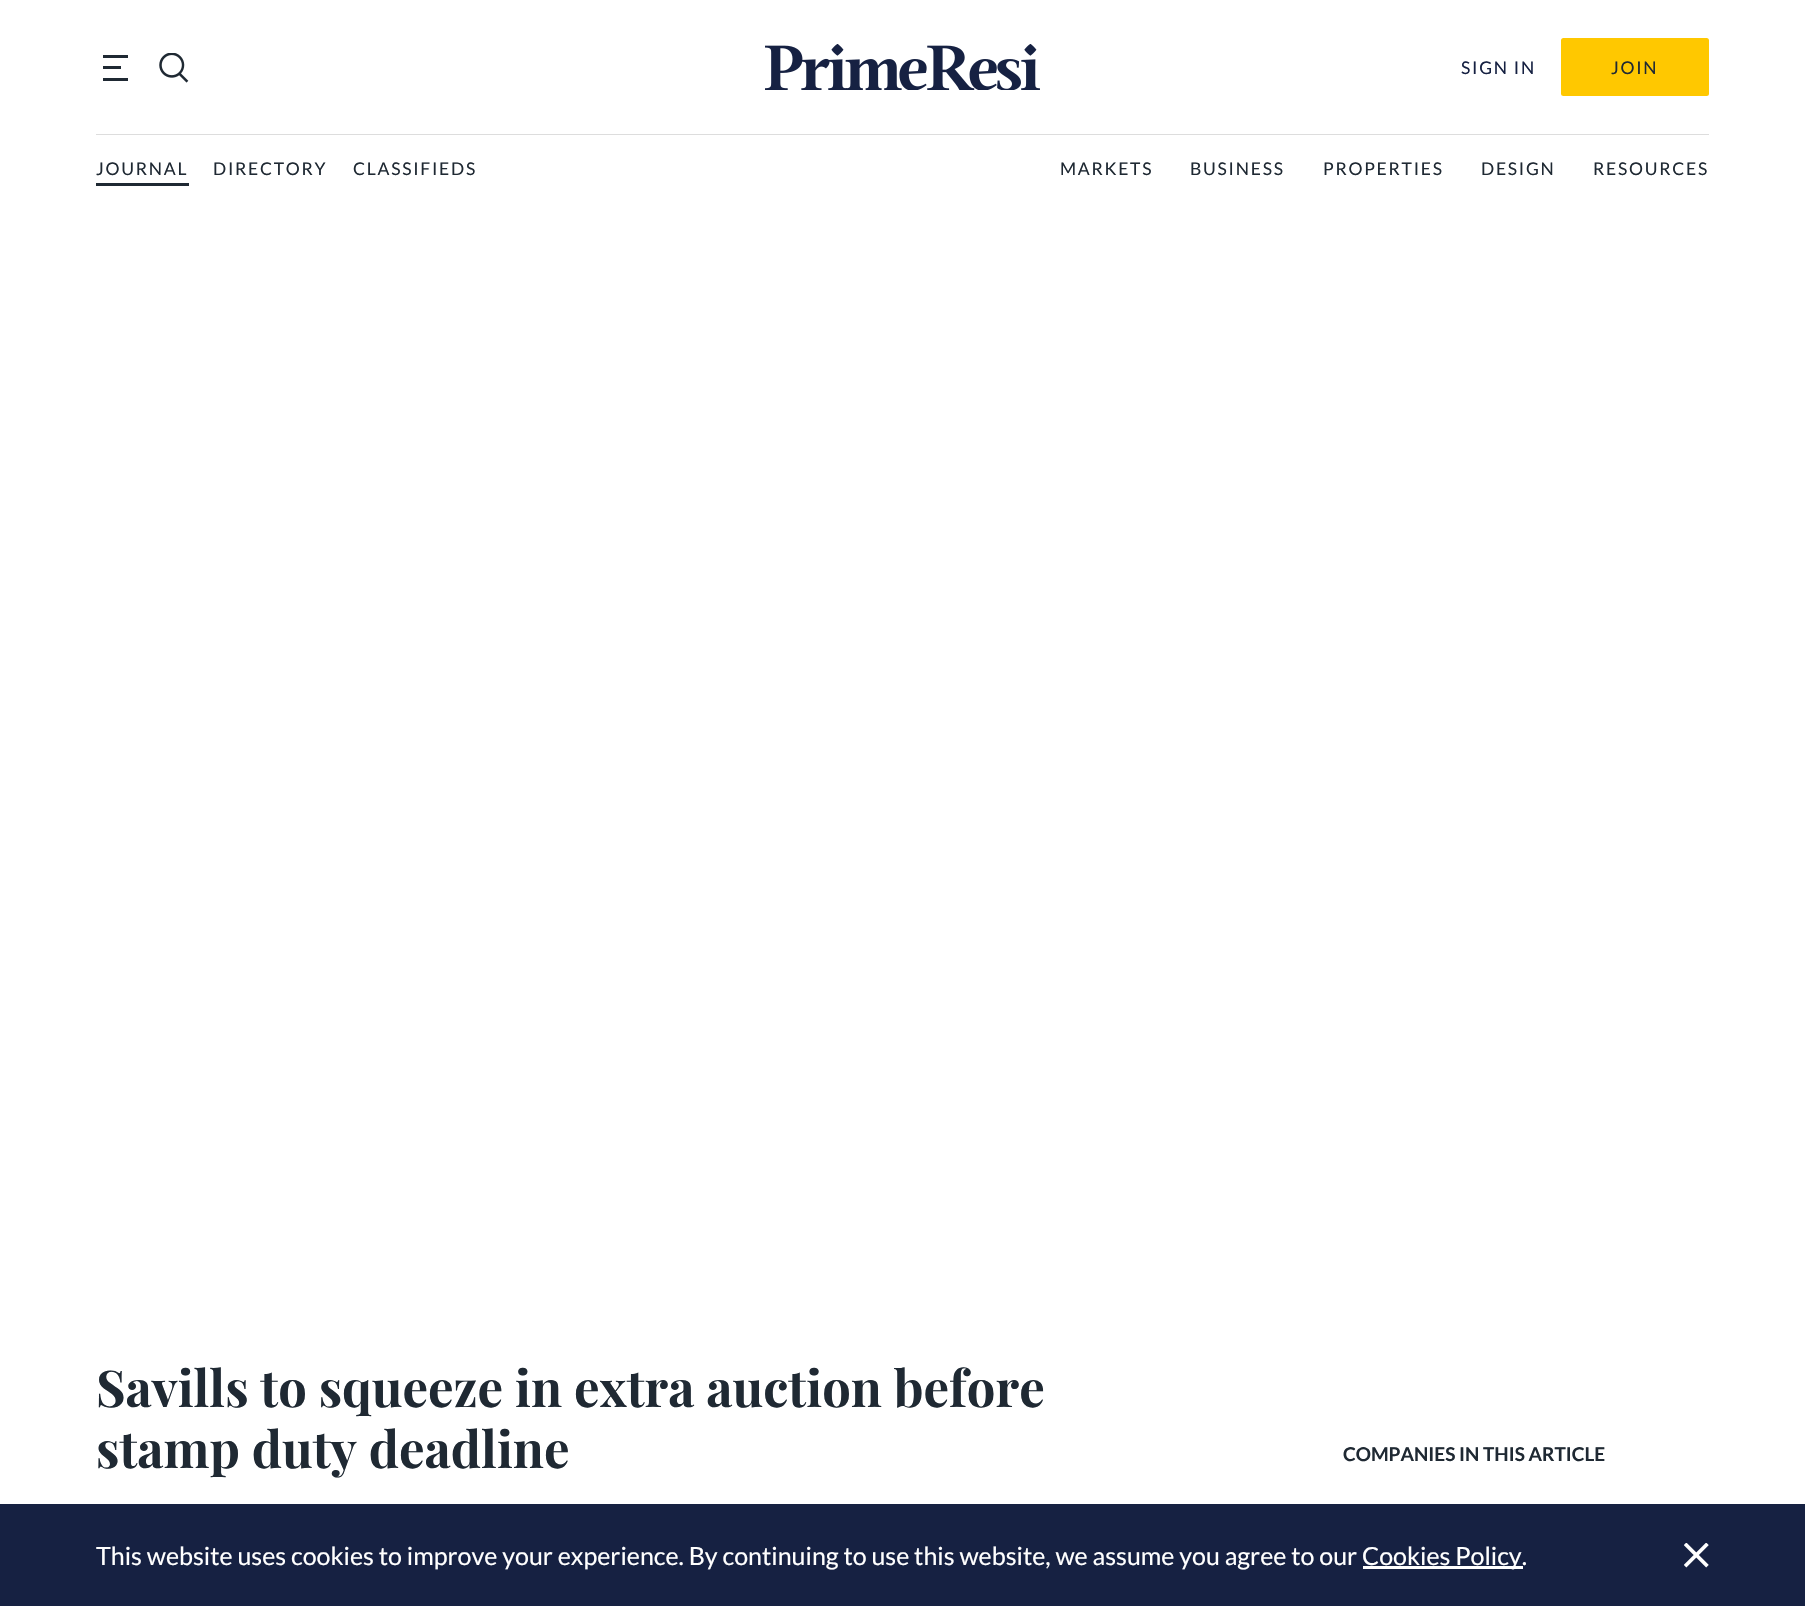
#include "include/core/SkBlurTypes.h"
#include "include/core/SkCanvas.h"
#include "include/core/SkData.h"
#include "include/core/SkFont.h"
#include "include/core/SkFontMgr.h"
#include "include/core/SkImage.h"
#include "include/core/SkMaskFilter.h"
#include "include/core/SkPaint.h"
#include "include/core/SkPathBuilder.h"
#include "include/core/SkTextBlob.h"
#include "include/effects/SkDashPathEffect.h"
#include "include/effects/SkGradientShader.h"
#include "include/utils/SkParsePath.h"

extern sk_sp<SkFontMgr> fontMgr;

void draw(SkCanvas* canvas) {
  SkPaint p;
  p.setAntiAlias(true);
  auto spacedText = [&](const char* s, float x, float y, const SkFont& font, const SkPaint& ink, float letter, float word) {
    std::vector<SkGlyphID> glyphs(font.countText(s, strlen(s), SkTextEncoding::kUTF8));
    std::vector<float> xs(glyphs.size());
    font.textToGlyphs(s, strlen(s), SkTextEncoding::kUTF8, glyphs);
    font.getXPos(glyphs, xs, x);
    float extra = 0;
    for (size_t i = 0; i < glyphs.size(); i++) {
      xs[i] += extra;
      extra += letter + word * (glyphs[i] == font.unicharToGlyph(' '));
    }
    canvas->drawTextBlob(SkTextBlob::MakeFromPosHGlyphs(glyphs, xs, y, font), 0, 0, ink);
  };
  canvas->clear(SK_ColorWHITE);
  p.setColor(SkColorSetRGB(221, 221, 221));
  canvas->drawRect(SkRect::MakeLTRB(96, 134, 1709, 135), p);
  p.setColor(SkColorSetRGB(31, 41, 51));
  canvas->drawRect(SkRect::MakeLTRB(103, 55, 128, 58), p);
  canvas->drawRect(SkRect::MakeLTRB(103, 66, 121, 69), p);
  canvas->drawRect(SkRect::MakeLTRB(103, 78, 128, 81), p);
  canvas->drawImageRect(SkImages::DeferredFromEncodedData(SkData::MakeFromFileName("images/1.png")), SkRect::MakeLTRB(159, 53, 189, 83), SkSamplingOptions());
  canvas->drawImageRect(SkImages::DeferredFromEncodedData(SkData::MakeFromFileName("images/2.png")), SkRect::MakeLTRB(765, 44, 1040, 90), SkSamplingOptions());
  p.setColor(SkColorSetRGB(255, 200, 0));
  canvas->drawRoundRect(SkRect::MakeLTRB(1561, 38, 1709, 96), 2.5f, 2.5f, p);
  p.setColor(SkColorSetRGB(31, 41, 51));
  canvas->drawRect(SkRect::MakeLTRB(96, 183, 189, 186), p);
  p.setColor(SkColorSetRGB(22, 33, 66));
  canvas->drawRect(SkRect::MakeLTRB(0, 1504, 1805, 1606), p);
  p.setColor(SK_ColorWHITE);
  canvas->drawRect(SkRect::MakeLTRB(1363, 1566, 1523, 1569), p);
  canvas->drawImageRect(SkImages::DeferredFromEncodedData(SkData::MakeFromFileName("images/3.png")), SkRect::MakeLTRB(1684, 1543, 1709, 1568), SkSamplingOptions());
  SkFont font1(fontMgr->matchFamilyStyle("Lato", SkFontStyle::Normal()), 17.5f);
  font1.setSubpixel(true);
  p.setColor(SkColorSetRGB(22, 33, 66));
  spacedText("SIGN IN", 1461, 74, font1, p, 1.75f, 0);
  p.setColor(SkColorSetRGB(31, 41, 51));
  spacedText("JOIN", 1611, 74, font1, p, 1.75f, 0);
  spacedText("JOURNAL", 96, 175, font1, p, 1.75f, 0);
  spacedText("DIRECTORY", 213, 175, font1, p, 1.75f, 0);
  spacedText("CLASSIFIEDS", 353, 175, font1, p, 1.75f, 0);
  spacedText("MARKETS", 1060, 175, font1, p, 1.75f, 0);
  spacedText("BUSINESS", 1190, 175, font1, p, 1.75f, 0);
  spacedText("PROPERTIES", 1323, 175, font1, p, 1.75f, 0);
  spacedText("DESIGN", 1481, 175, font1, p, 1.75f, 0);
  spacedText("RESOURCES", 1593, 175, font1, p, 1.75f, 0);
  SkFont font2(fontMgr->matchFamilyStyle("Playfair Display", SkFontStyle::Bold()), 50.7f);
  font2.setSubpixel(true);
  canvas->drawString("Savills to squeeze in extra auction before", 96, 1407, font2, p);
  canvas->drawString("stamp duty deadline", 96, 1468, font2, p);
  SkFont font3(fontMgr->matchFamilyStyle("Lato", SkFontStyle::Bold()), 19);
  font3.setSubpixel(true);
  canvas->drawString("COMPANIES IN THIS ARTICLE", 1343, 1461, font3, p);
  SkFont font4(fontMgr->matchFamilyStyle("Lato", SkFontStyle::Normal()), 25);
  font4.setSubpixel(true);
  p.setColor(SK_ColorWHITE);
  canvas->drawString("This website uses cookies to improve your experience. By continuing to use this website, we assume you agree to our", 96, 1565, font4, p);
  canvas->drawString("Cookies Policy.", 1362, 1565, font4, p);
}
